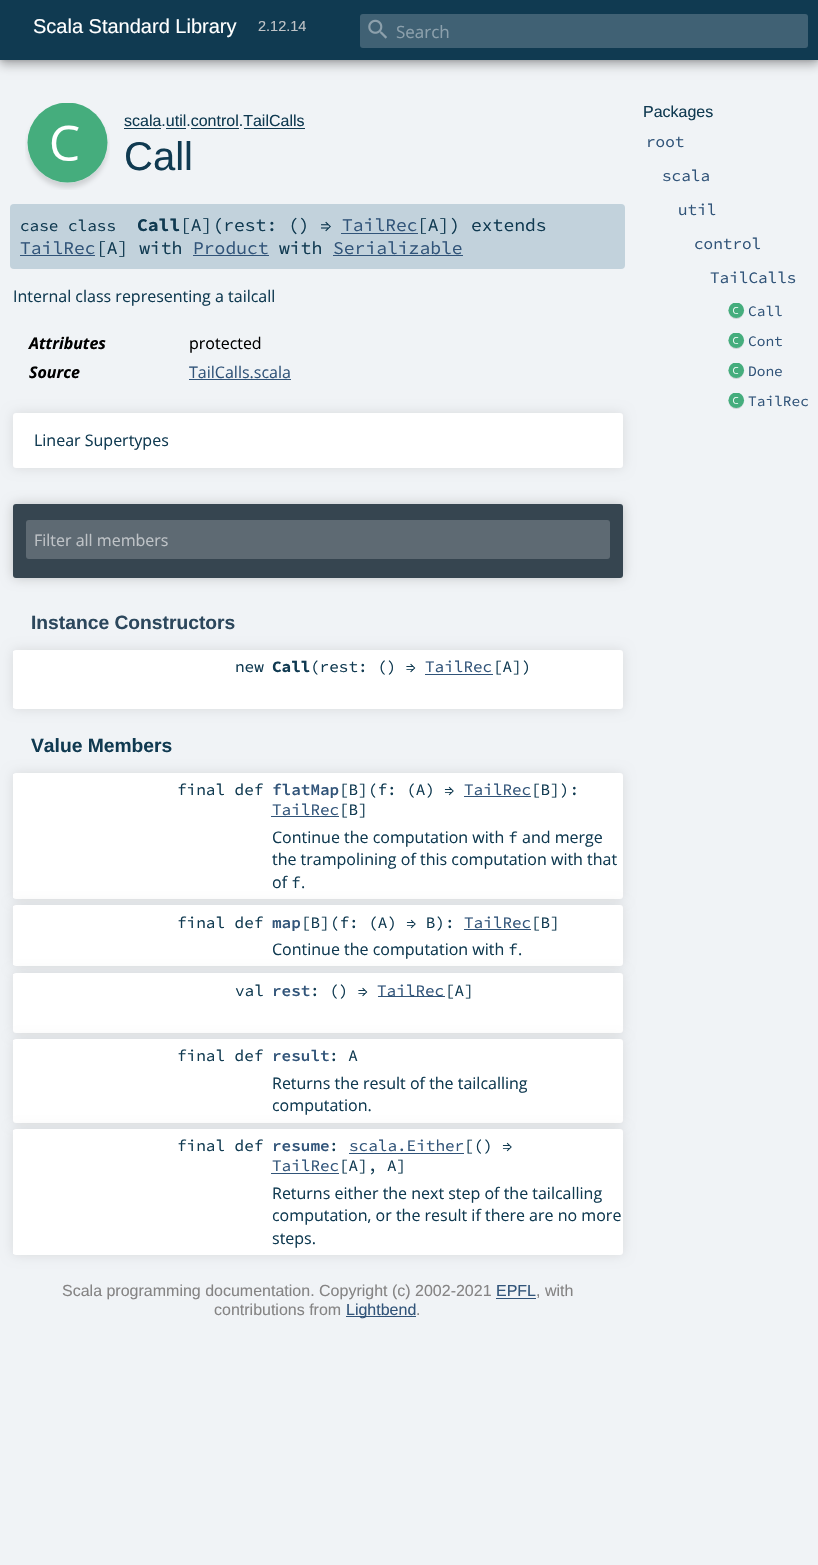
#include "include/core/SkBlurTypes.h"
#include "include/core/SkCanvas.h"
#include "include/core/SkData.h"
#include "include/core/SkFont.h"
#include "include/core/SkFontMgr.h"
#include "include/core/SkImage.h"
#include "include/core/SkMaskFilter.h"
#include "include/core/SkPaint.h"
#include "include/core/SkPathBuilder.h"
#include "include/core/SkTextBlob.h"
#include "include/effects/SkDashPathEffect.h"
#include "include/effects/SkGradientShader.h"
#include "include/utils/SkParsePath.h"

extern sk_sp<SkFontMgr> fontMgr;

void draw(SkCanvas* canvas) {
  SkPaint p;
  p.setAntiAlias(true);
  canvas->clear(SkColorSetRGB(240, 243, 246));
  p.setColor(SkColorSetARGB(71, 0, 0, 0));
  p.setMaskFilter(SkMaskFilter::MakeBlur(kNormal_SkBlurStyle, 5));
  canvas->drawRect(SkRect::MakeLTRB(0, 5, 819, 65), p);
  p.setMaskFilter(nullptr);
  p.setColor(SkColorSetARGB(46, 0, 0, 0));
  p.setMaskFilter(SkMaskFilter::MakeBlur(kNormal_SkBlurStyle, 2.5f));
  canvas->drawRect(SkRect::MakeLTRB(0, 0, 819, 60), p);
  p.setMaskFilter(nullptr);
  p.setColor(SkColorSetRGB(16, 58, 81));
  canvas->drawRect(SkRect::MakeLTRB(0, 0, 818, 60), p);
  p.setColor(SkColorSetRGB(64, 97, 116));
  canvas->drawRoundRect(SkRect::MakeLTRB(360, 14, 808, 48), 3, 3, p);
  canvas->drawImageRect(SkImages::DeferredFromEncodedData(SkData::MakeFromFileName("images/1.png")), SkRect::MakeLTRB(368, 19, 387, 39), SkSamplingOptions());
  canvas->drawImageRect(SkImages::DeferredFromEncodedData(SkData::MakeFromFileName("images/2.png")), SkRect::MakeLTRB(25, 103, 110, 190), SkSamplingOptions());
  p.setColor(SkColorSetRGB(16, 58, 81));
  canvas->drawRect(SkRect::MakeLTRB(124, 128, 161, 129), p);
  canvas->drawRect(SkRect::MakeLTRB(166, 128, 186, 129), p);
  canvas->drawRect(SkRect::MakeLTRB(191, 128, 239, 129), p);
  canvas->drawRect(SkRect::MakeLTRB(244, 128, 305, 129), p);
  p.setColor(SkColorSetRGB(194, 210, 220));
  canvas->drawRoundRect(SkRect::MakeLTRB(10, 204, 625, 269), 4, 4, p);
  p.setColor(SkColorSetRGB(49, 84, 121));
  canvas->drawRect(SkRect::MakeLTRB(341, 233, 418, 234), p);
  canvas->drawRect(SkRect::MakeLTRB(20, 255, 95, 256), p);
  canvas->drawRect(SkRect::MakeLTRB(193, 255, 269, 256), p);
  canvas->drawRect(SkRect::MakeLTRB(333, 255, 463, 256), p);
  canvas->drawRect(SkRect::MakeLTRB(189, 379, 291, 380), p);
  p.setColor(SkColorSetARGB(26, 0, 0, 0));
  p.setMaskFilter(SkMaskFilter::MakeBlur(kNormal_SkBlurStyle, 6));
  canvas->drawRoundRect(SkRect::MakeLTRB(13, 413, 623, 468), 3, 3, p);
  p.setMaskFilter(nullptr);
  p.setColor(SK_ColorWHITE);
  canvas->drawRoundRect(SkRect::MakeLTRB(13, 413, 623, 468), 3, 3, p);
  p.setColor(SkColorSetARGB(51, 0, 0, 0));
  p.setMaskFilter(SkMaskFilter::MakeBlur(kNormal_SkBlurStyle, 6));
  canvas->drawRoundRect(SkRect::MakeLTRB(13, 504, 623, 578), 3, 3, p);
  p.setMaskFilter(nullptr);
  p.setColor(SkColorSetRGB(54, 69, 80));
  canvas->drawRoundRect(SkRect::MakeLTRB(13, 504, 623, 578), 3, 3, p);
  p.setColor(SkColorSetRGB(94, 106, 115));
  canvas->drawRoundRect(SkRect::MakeLTRB(26, 520, 610, 559), 3, 3, p);
  p.setColor(SkColorSetARGB(26, 0, 0, 0));
  p.setMaskFilter(SkMaskFilter::MakeBlur(kNormal_SkBlurStyle, 6));
  canvas->drawRoundRect(SkRect::MakeLTRB(13, 650, 623, 709), 3, 3, p);
  p.setMaskFilter(nullptr);
  p.setColor(SK_ColorWHITE);
  canvas->drawRoundRect(SkRect::MakeLTRB(13, 650, 623, 709), 3, 3, p);
  canvas->drawRect(SkRect::MakeLTRB(13, 651, 14, 708), p);
  p.setColor(SkColorSetRGB(49, 84, 121));
  canvas->drawRect(SkRect::MakeLTRB(425, 674, 493, 675), p);
  p.setColor(SkColorSetARGB(26, 0, 0, 0));
  p.setMaskFilter(SkMaskFilter::MakeBlur(kNormal_SkBlurStyle, 6));
  canvas->drawRoundRect(SkRect::MakeLTRB(13, 773, 623, 899), 3, 3, p);
  p.setMaskFilter(nullptr);
  p.setColor(SK_ColorWHITE);
  canvas->drawRoundRect(SkRect::MakeLTRB(13, 773, 623, 899), 3, 3, p);
  canvas->drawRect(SkRect::MakeLTRB(13, 774, 14, 898), p);
  p.setColor(SkColorSetRGB(49, 84, 121));
  canvas->drawRect(SkRect::MakeLTRB(464, 796, 531, 797), p);
  canvas->drawRect(SkRect::MakeLTRB(271, 816, 339, 817), p);
  p.setColor(SkColorSetARGB(26, 0, 0, 0));
  p.setMaskFilter(SkMaskFilter::MakeBlur(kNormal_SkBlurStyle, 6));
  canvas->drawRoundRect(SkRect::MakeLTRB(13, 905, 623, 966), 3, 3, p);
  p.setMaskFilter(nullptr);
  p.setColor(SK_ColorWHITE);
  canvas->drawRoundRect(SkRect::MakeLTRB(13, 905, 623, 966), 3, 3, p);
  canvas->drawRect(SkRect::MakeLTRB(13, 906, 14, 965), p);
  p.setColor(SkColorSetRGB(49, 84, 121));
  canvas->drawRect(SkRect::MakeLTRB(464, 929, 531, 930), p);
  p.setColor(SkColorSetARGB(26, 0, 0, 0));
  p.setMaskFilter(SkMaskFilter::MakeBlur(kNormal_SkBlurStyle, 6));
  canvas->drawRoundRect(SkRect::MakeLTRB(13, 973, 623, 1033), 3, 3, p);
  p.setMaskFilter(nullptr);
  p.setColor(SK_ColorWHITE);
  canvas->drawRoundRect(SkRect::MakeLTRB(13, 973, 623, 1033), 3, 3, p);
  canvas->drawRect(SkRect::MakeLTRB(13, 974, 14, 975), p);
  p.setColor(SkColorSetRGB(49, 84, 121));
  canvas->drawRect(SkRect::MakeLTRB(378, 996, 445, 997), p);
  p.setColor(SkColorSetARGB(26, 0, 0, 0));
  p.setMaskFilter(SkMaskFilter::MakeBlur(kNormal_SkBlurStyle, 6));
  canvas->drawRoundRect(SkRect::MakeLTRB(13, 1039, 623, 1123), 3, 3, p);
  p.setMaskFilter(nullptr);
  p.setColor(SK_ColorWHITE);
  canvas->drawRoundRect(SkRect::MakeLTRB(13, 1039, 623, 1123), 3, 3, p);
  canvas->drawRect(SkRect::MakeLTRB(13, 1040, 14, 1041), p);
  p.setColor(SkColorSetARGB(26, 0, 0, 0));
  p.setMaskFilter(SkMaskFilter::MakeBlur(kNormal_SkBlurStyle, 6));
  canvas->drawRoundRect(SkRect::MakeLTRB(13, 1129, 623, 1255), 3, 3, p);
  p.setMaskFilter(nullptr);
  p.setColor(SK_ColorWHITE);
  canvas->drawRoundRect(SkRect::MakeLTRB(13, 1129, 623, 1255), 3, 3, p);
  canvas->drawRect(SkRect::MakeLTRB(13, 1130, 14, 1254), p);
  p.setColor(SkColorSetRGB(49, 84, 121));
  canvas->drawRect(SkRect::MakeLTRB(349, 1153, 464, 1154), p);
  canvas->drawRect(SkRect::MakeLTRB(271, 1173, 339, 1174), p);
  canvas->drawRect(SkRect::MakeLTRB(496, 1298, 536, 1299), p);
  canvas->drawRect(SkRect::MakeLTRB(346, 1316, 416, 1317), p);
  canvas->drawImageRect(SkImages::DeferredFromEncodedData(SkData::MakeFromFileName("images/3.png")), SkRect::MakeLTRB(728, 303, 745, 319), SkSamplingOptions());
  canvas->drawImageRect(SkImages::DeferredFromEncodedData(SkData::MakeFromFileName("images/3.png")), SkRect::MakeLTRB(728, 333, 745, 349), SkSamplingOptions());
  canvas->drawImageRect(SkImages::DeferredFromEncodedData(SkData::MakeFromFileName("images/3.png")), SkRect::MakeLTRB(728, 363, 745, 379), SkSamplingOptions());
  canvas->drawImageRect(SkImages::DeferredFromEncodedData(SkData::MakeFromFileName("images/3.png")), SkRect::MakeLTRB(728, 393, 745, 409), SkSamplingOptions());
  SkFont font1(fontMgr->matchFamilyStyle("Liberation Sans", SkFontStyle::Normal()), 20);
  font1.setSubpixel(true);
  p.setColor(SK_ColorWHITE);
  canvas->drawString("Scala Standard Library", 33, 33, font1, p);
  SkFont font2(fontMgr->matchFamilyStyle("Liberation Sans", SkFontStyle::Normal()), 14.5f);
  font2.setSubpixel(true);
  p.setColor(SkColorSetRGB(191, 195, 199));
  canvas->drawString("2.12.14", 258, 31, font2, p);
  SkFont font3(fontMgr->matchFamilyStyle("Open Sans", SkFontStyle::Normal()), 17);
  font3.setSubpixel(true);
  p.setColor(SkColorSetRGB(140, 160, 172));
  canvas->drawString("Search", 396, 38, font3, p);
  SkFont font4(fontMgr->matchFamilyStyle("Liberation Sans", SkFontStyle::Normal()), 16);
  font4.setSubpixel(true);
  p.setColor(SkColorSetRGB(16, 58, 81));
  canvas->drawString("scala.util.control.TailCalls", 124, 126, font4, p);
  SkFont font5(fontMgr->matchFamilyStyle("Liberation Sans", SkFontStyle::Normal()), 40);
  font5.setSubpixel(true);
  canvas->drawString("Call", 124, 170, font5, p);
  SkFont font6(fontMgr->matchFamilyStyle("Source Code Pro", SkFontStyle::Bold()), 18);
  font6.setSubpixel(true);
  canvas->drawString("Call", 137, 231, font6, p);
  SkFont font7(fontMgr->matchFamilyStyle("Source Code Pro", SkFontStyle::Normal()), 18);
  font7.setSubpixel(true);
  canvas->drawString("[A](rest: () ⇒", 180, 231, font7, p);
  p.setColor(SkColorSetRGB(49, 84, 121));
  canvas->drawString("TailRec", 342, 231, font7, p);
  p.setColor(SkColorSetRGB(16, 58, 81));
  canvas->drawString("[A]) extends", 417, 231, font7, p);
  p.setColor(SkColorSetRGB(49, 84, 121));
  canvas->drawString("TailRec", 20, 254, font7, p);
  p.setColor(SkColorSetRGB(16, 58, 81));
  canvas->drawString("[A] with", 96, 254, font7, p);
  p.setColor(SkColorSetRGB(49, 84, 121));
  canvas->drawString("Product", 193, 254, font7, p);
  p.setColor(SkColorSetRGB(16, 58, 81));
  canvas->drawString("with", 279, 254, font7, p);
  p.setColor(SkColorSetRGB(49, 84, 121));
  canvas->drawString("Serializable", 333, 254, font7, p);
  SkFont font8(fontMgr->matchFamilyStyle("Source Code Pro", SkFontStyle::Normal()), 16);
  font8.setSubpixel(true);
  p.setColor(SkColorSetRGB(16, 58, 81));
  canvas->drawString("case class", 20, 231, font8, p);
  SkFont font9(fontMgr->matchFamilyStyle("Open Sans", SkFontStyle::Normal()), 16);
  font9.setSubpixel(true);
  canvas->drawString("Internal class representing a tailcall", 13, 302, font9, p);
  SkFont font10(fontMgr->matchFamilyStyle("Open Sans", SkFontStyle::BoldItalic()), 16);
  font10.setSubpixel(true);
  p.setColor(SK_ColorBLACK);
  canvas->drawString("Attributes", 29, 349, font10, p);
  canvas->drawString("protected", 189, 349, font9, p);
  canvas->drawString("Source", 29, 378, font10, p);
  p.setColor(SkColorSetRGB(49, 84, 121));
  canvas->drawString("TailCalls.scala", 189, 378, font9, p);
  p.setColor(SkColorSetRGB(16, 58, 81));
  canvas->drawString("Linear Supertypes", 34, 446, font9, p);
  p.setColor(SkColorSetRGB(191, 195, 199));
  canvas->drawString("Filter all members", 34, 546, font9, p);
  SkFont font11(fontMgr->matchFamilyStyle("Liberation Sans", SkFontStyle::Bold()), 19.25f);
  font11.setSubpixel(true);
  p.setColor(SkColorSetRGB(44, 71, 92));
  canvas->drawString("Instance Constructors", 31, 629, font11, p);
  p.setColor(SkColorSetRGB(16, 58, 81));
  canvas->drawString("new", 235, 672, font8, p);
  SkFont font12(fontMgr->matchFamilyStyle("Source Code Pro", SkFontStyle::Bold()), 16);
  font12.setSubpixel(true);
  canvas->drawString("Call", 272, 672, font12, p);
  canvas->drawString("(rest: () ⇒", 310, 672, font8, p);
  p.setColor(SkColorSetRGB(49, 84, 121));
  canvas->drawString("TailRec", 425, 672, font8, p);
  p.setColor(SkColorSetRGB(16, 58, 81));
  canvas->drawString("[A])", 493, 672, font8, p);
  canvas->drawString("Value Members", 31, 752, font11, p);
  canvas->drawString("final def", 177, 795, font8, p);
  SkFont font13(fontMgr->matchFamilyStyle("Source Code Pro", SkFontStyle(600, SkFontStyle::kNormal_Width, SkFontStyle::kUpright_Slant)), 16);
  font13.setSubpixel(true);
  p.setColor(SkColorSetRGB(49, 84, 121));
  canvas->drawString("flatMap", 272, 795, font13, p);
  p.setColor(SkColorSetRGB(16, 58, 81));
  canvas->drawString("[B](f: (A) ⇒", 339, 795, font8, p);
  p.setColor(SkColorSetRGB(49, 84, 121));
  canvas->drawString("TailRec", 464, 795, font8, p);
  p.setColor(SkColorSetRGB(16, 58, 81));
  canvas->drawString("[B]):", 531, 795, font8, p);
  p.setColor(SkColorSetRGB(49, 84, 121));
  canvas->drawString("TailRec", 272, 815, font8, p);
  p.setColor(SkColorSetRGB(16, 58, 81));
  canvas->drawString("[B]", 339, 815, font8, p);
  canvas->drawString("Continue the computation with", 272, 843, font9, p);
  canvas->drawString("f", 508, 843, font8, p);
  canvas->drawString("and merge", 522, 843, font9, p);
  canvas->drawString("the trampolining of this computation with that", 272, 865, font9, p);
  canvas->drawString("of", 272, 888, font9, p);
  canvas->drawString("f", 291, 888, font8, p);
  canvas->drawString(".", 301, 888, font9, p);
  canvas->drawString("final def", 177, 928, font8, p);
  p.setColor(SkColorSetRGB(49, 84, 121));
  canvas->drawString("map", 272, 928, font13, p);
  p.setColor(SkColorSetRGB(16, 58, 81));
  canvas->drawString("[B](f: (A) ⇒ B):", 301, 928, font8, p);
  p.setColor(SkColorSetRGB(49, 84, 121));
  canvas->drawString("TailRec", 464, 928, font8, p);
  p.setColor(SkColorSetRGB(16, 58, 81));
  canvas->drawString("[B]", 531, 928, font8, p);
  canvas->drawString("Continue the computation with", 272, 955, font9, p);
  canvas->drawString("f", 508, 955, font8, p);
  canvas->drawString(".", 518, 955, font9, p);
  canvas->drawString("val", 235, 996, font8, p);
  p.setColor(SkColorSetRGB(49, 84, 121));
  canvas->drawString("rest", 272, 996, font13, p);
  p.setColor(SkColorSetRGB(16, 58, 81));
  canvas->drawString(": () ⇒", 310, 996, font8, p);
  p.setColor(SkColorSetRGB(49, 84, 121));
  canvas->drawString("TailRec", 377, 996, font8, p);
  p.setColor(SkColorSetRGB(16, 58, 81));
  canvas->drawString("[A]", 445, 996, font8, p);
  canvas->drawString("final def", 177, 1061, font8, p);
  p.setColor(SkColorSetRGB(49, 84, 121));
  canvas->drawString("result", 272, 1061, font13, p);
  p.setColor(SkColorSetRGB(16, 58, 81));
  canvas->drawString(": A", 329, 1061, font8, p);
  canvas->drawString("Returns the result of the tailcalling", 272, 1089, font9, p);
  canvas->drawString("computation.", 272, 1111, font9, p);
  canvas->drawString("final def", 177, 1151, font8, p);
  p.setColor(SkColorSetRGB(49, 84, 121));
  canvas->drawString("resume", 272, 1151, font13, p);
  p.setColor(SkColorSetRGB(16, 58, 81));
  canvas->drawString(":", 329, 1151, font8, p);
  p.setColor(SkColorSetRGB(49, 84, 121));
  canvas->drawString("scala.Either", 349, 1151, font8, p);
  p.setColor(SkColorSetRGB(16, 58, 81));
  canvas->drawString("[() ⇒", 464, 1151, font8, p);
  p.setColor(SkColorSetRGB(49, 84, 121));
  canvas->drawString("TailRec", 272, 1171, font8, p);
  p.setColor(SkColorSetRGB(16, 58, 81));
  canvas->drawString("[A], A]", 339, 1171, font8, p);
  canvas->drawString("Returns either the next step of the tailcalling", 272, 1199, font9, p);
  canvas->drawString("computation, or the result if there are no more", 272, 1221, font9, p);
  canvas->drawString("steps.", 272, 1244, font9, p);
  p.setColor(SkColorSetRGB(133, 132, 132));
  canvas->drawString("Scala programming documentation. Copyright (c) 2002-2021", 62, 1296, font4, p);
  p.setColor(SkColorSetRGB(49, 84, 121));
  canvas->drawString("EPFL", 496, 1296, font4, p);
  p.setColor(SkColorSetRGB(133, 132, 132));
  canvas->drawString(", with", 536, 1296, font4, p);
  canvas->drawString("contributions from", 214, 1315, font4, p);
  p.setColor(SkColorSetRGB(49, 84, 121));
  canvas->drawString("Lightbend", 346, 1315, font4, p);
  p.setColor(SkColorSetRGB(133, 132, 132));
  canvas->drawString(".", 416, 1315, font4, p);
  p.setColor(SkColorSetRGB(16, 58, 81));
  canvas->drawString("Packages", 643, 117, font4, p);
  p.setColor(SkColorSetRGB(49, 84, 121));
  canvas->drawString("root", 646, 147, font8, p);
  canvas->drawString("scala", 662, 181, font8, p);
  canvas->drawString("util", 678, 215, font8, p);
  canvas->drawString("control", 694, 249, font8, p);
  canvas->drawString("TailCalls", 710, 283, font8, p);
  SkFont font14(fontMgr->matchFamilyStyle("Source Code Pro", SkFontStyle::Normal()), 14.5f);
  font14.setSubpixel(true);
  canvas->drawString("Call", 748, 316, font14, p);
  canvas->drawString("Cont", 748, 346, font14, p);
  canvas->drawString("Done", 748, 376, font14, p);
  canvas->drawString("TailRec", 748, 406, font14, p);
}
